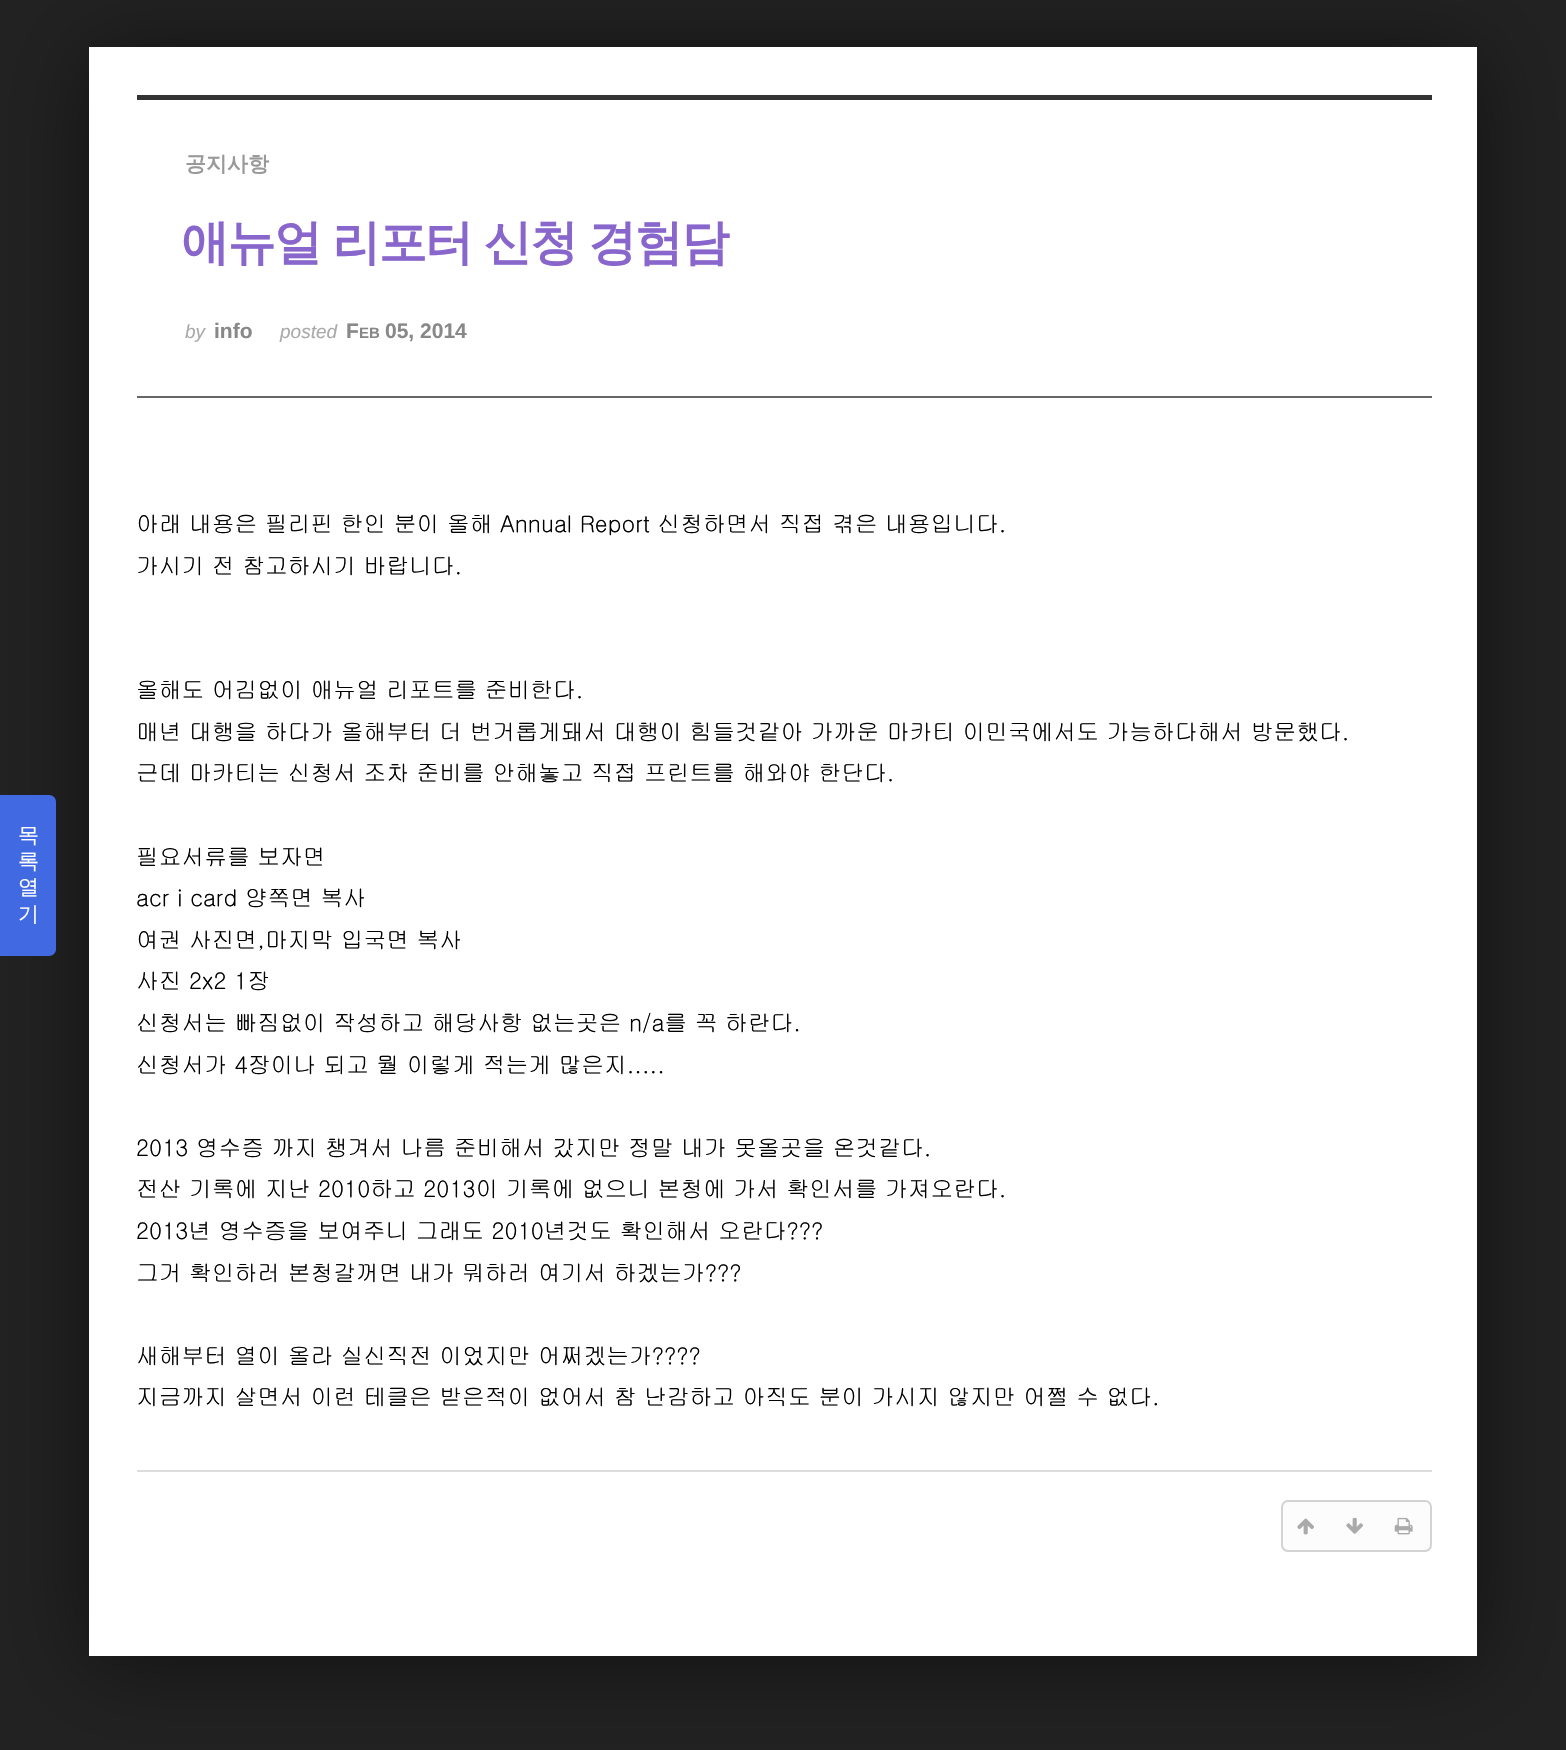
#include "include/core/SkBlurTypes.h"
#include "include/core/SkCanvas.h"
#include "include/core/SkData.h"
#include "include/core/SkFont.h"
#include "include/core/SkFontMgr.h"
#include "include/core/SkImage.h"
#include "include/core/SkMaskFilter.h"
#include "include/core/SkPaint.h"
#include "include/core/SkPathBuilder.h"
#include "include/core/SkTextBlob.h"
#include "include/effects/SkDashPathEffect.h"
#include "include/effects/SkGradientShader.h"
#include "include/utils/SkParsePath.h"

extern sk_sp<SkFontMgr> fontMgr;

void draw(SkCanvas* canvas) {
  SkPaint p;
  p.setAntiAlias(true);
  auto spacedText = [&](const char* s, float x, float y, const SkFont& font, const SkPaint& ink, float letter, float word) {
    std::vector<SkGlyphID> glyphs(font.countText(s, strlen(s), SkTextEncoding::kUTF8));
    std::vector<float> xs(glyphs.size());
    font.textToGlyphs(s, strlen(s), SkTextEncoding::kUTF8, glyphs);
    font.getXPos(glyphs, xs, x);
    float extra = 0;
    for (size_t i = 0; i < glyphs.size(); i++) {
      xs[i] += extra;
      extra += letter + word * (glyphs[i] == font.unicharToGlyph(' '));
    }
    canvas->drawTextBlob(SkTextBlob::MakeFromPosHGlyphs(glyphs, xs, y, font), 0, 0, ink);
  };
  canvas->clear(SkColorSetRGB(34, 34, 34));
  p.setColor(SkColorSetARGB(128, 0, 0, 0));
  p.setMaskFilter(SkMaskFilter::MakeBlur(kNormal_SkBlurStyle, 42));
  canvas->drawRect(SkRect::MakeLTRB(89, 54, 1477, 1663), p);
  p.setMaskFilter(nullptr);
  p.setColor(SK_ColorWHITE);
  canvas->drawRect(SkRect::MakeLTRB(89, 47, 1477, 1656), p);
  p.setColor(SkColorSetRGB(65, 105, 225));
  canvas->drawPath(SkPathBuilder().moveTo(0, 795).lineTo(49, 795).cubicTo(53, 795, 56, 798, 56, 802).lineTo(56, 949).cubicTo(56, 953, 53, 956, 49, 956).lineTo(0, 956).close().detach(), p);
  p.setColor(SkColorSetRGB(51, 51, 51));
  canvas->drawRect(SkRect::MakeLTRB(137, 95, 1432, 100), p);
  p.setColor(SkColorSetRGB(102, 102, 102));
  canvas->drawRect(SkRect::MakeLTRB(137, 396, 1432, 398), p);
  p.setColor(SkColorSetRGB(221, 221, 221));
  canvas->drawRect(SkRect::MakeLTRB(137, 1470, 1432, 1472), p);
  p.setColor(SkColorSetRGB(252, 252, 252));
  canvas->drawRoundRect(SkRect::MakeLTRB(1282, 1501, 1431, 1551), 6, 6, p);
  p.setStyle(SkPaint::kStroke_Style);
  p.setStrokeWidth(2);
  p.setColor(SkColorSetRGB(211, 211, 211));
  canvas->drawRoundRect(SkRect::MakeLTRB(1282, 1501, 1431, 1551), 6, 6, p);
  canvas->drawImageRect(SkImages::DeferredFromEncodedData(SkData::MakeFromFileName("images/1.png")), SkRect::MakeLTRB(1297, 1518, 1314, 1535), SkSamplingOptions());
  canvas->drawImageRect(SkImages::DeferredFromEncodedData(SkData::MakeFromFileName("images/2.png")), SkRect::MakeLTRB(1346, 1517, 1363, 1534), SkSamplingOptions());
  canvas->drawImageRect(SkImages::DeferredFromEncodedData(SkData::MakeFromFileName("images/3.png")), SkRect::MakeLTRB(1394, 1517, 1413, 1535), SkSamplingOptions());
  SkFont font1(fontMgr->matchFamilyStyle("WenQuanYi Zen Hei", SkFontStyle(500, SkFontStyle::kNormal_Width, SkFontStyle::kUpright_Slant)), 21);
  font1.setSubpixel(true);
  p.setStyle(SkPaint::kFill_Style);
  p.setColor(SK_ColorWHITE);
  canvas->drawString("목", 18, 842, font1, p);
  canvas->drawString("록", 18, 868, font1, p);
  canvas->drawString("열", 18, 894, font1, p);
  canvas->drawString("기", 18, 921, font1, p);
  SkFont font2(fontMgr->matchFamilyStyle("WenQuanYi Zen Hei", SkFontStyle::Bold()), 21);
  font2.setSubpixel(true);
  p.setColor(SkColorSetRGB(153, 153, 153));
  canvas->drawString("공지사항", 185, 171, font2, p);
  SkFont font3(fontMgr->matchFamilyStyle("WenQuanYi Zen Hei", SkFontStyle::Bold()), 48.25f);
  font3.setSubpixel(true);
  p.setColor(SkColorSetRGB(136, 102, 204));
  spacedText("애뉴얼 리포터 신청 경험담", 181, 259, font3, p, -1.75f, -1);
  SkFont font4(fontMgr->matchFamilyStyle("Liberation Sans", SkFontStyle::Italic()), 19);
  font4.setSubpixel(true);
  p.setColor(SkColorSetRGB(170, 170, 170));
  canvas->drawString("by", 185, 338, font4, p);
  SkFont font5(fontMgr->matchFamilyStyle("Liberation Sans", SkFontStyle::Bold()), 21);
  font5.setSubpixel(true);
  p.setColor(SkColorSetRGB(136, 136, 136));
  canvas->drawString("info", 214, 338, font5, p);
  p.setColor(SkColorSetRGB(170, 170, 170));
  canvas->drawString("posted", 280, 338, font4, p);
  p.setColor(SkColorSetRGB(136, 136, 136));
  canvas->drawString("F", 346, 338, font5, p);
  SkFont font6(fontMgr->matchFamilyStyle("Liberation Sans", SkFontStyle::Bold()), 15);
  font6.setSubpixel(true);
  canvas->drawString("EB", 359, 338, font6, p);
  canvas->drawString("05, 2014", 385, 338, font5, p);
  SkFont font7(fontMgr->matchFamilyStyle("Gulim", SkFontStyle::Normal()), 22.75f);
  font7.setSubpixel(true);
  p.setColor(SK_ColorBLACK);
  canvas->drawString("아래 내용은 필리핀 한인 분이 올해 Annual Report 신청하면서 직접 겪은 내용입니다.", 136, 532, font7, p);
  canvas->drawString("가시기 전 참고하시기 바랍니다.", 136, 574, font7, p);
  canvas->drawString("올해도 어김없이 애뉴얼 리포트를 준비한다.", 136, 698, font7, p);
  canvas->drawString("매년 대행을 하다가 올해부터 더 번거롭게돼서 대행이 힘들것같아 가까운 마카티 이민국에서도 가능하다해서 방문했다.", 136, 740, font7, p);
  canvas->drawString("근데 마카티는 신청서 조차 준비를 안해놓고 직접 프린트를 해와야 한단다.", 136, 781, font7, p);
  canvas->drawString("필요서류를 보자면", 136, 865, font7, p);
  canvas->drawString("acr i card 양쪽면 복사", 136, 906, font7, p);
  canvas->drawString("여권 사진면,마지막 입국면 복사", 136, 948, font7, p);
  canvas->drawString("사진 2x2 1장", 136, 989, font7, p);
  canvas->drawString("신청서는 빠짐없이 작성하고 해당사항 없는곳은 n/a를 꼭 하란다.", 136, 1031, font7, p);
  canvas->drawString("신청서가 4장이나 되고 뭘 이렇게 적는게 많은지.....", 136, 1073, font7, p);
  canvas->drawString("2013 영수증 까지 챙겨서 나름 준비해서 갔지만 정말 내가 못올곳을 온것같다.", 136, 1156, font7, p);
  canvas->drawString("전산 기록에 지난 2010하고 2013이 기록에 없으니 본청에 가서 확인서를 가져오란다.", 136, 1197, font7, p);
  canvas->drawString("2013년 영수증을 보여주니 그래도 2010년것도 확인해서 오란다?\077?", 136, 1239, font7, p);
  canvas->drawString("그거 확인하러 본청갈꺼면 내가 뭐하러 여기서 하겠는가?\077?", 136, 1281, font7, p);
  canvas->drawString("새해부터 열이 올라 실신직전 이었지만 어쩌겠는가?\077?\077", 136, 1364, font7, p);
  canvas->drawString("지금까지 살면서 이런 테클은 받은적이 없어서 참 난감하고 아직도 분이 가시지 않지만 어쩔 수 없다.", 136, 1405, font7, p);
}
